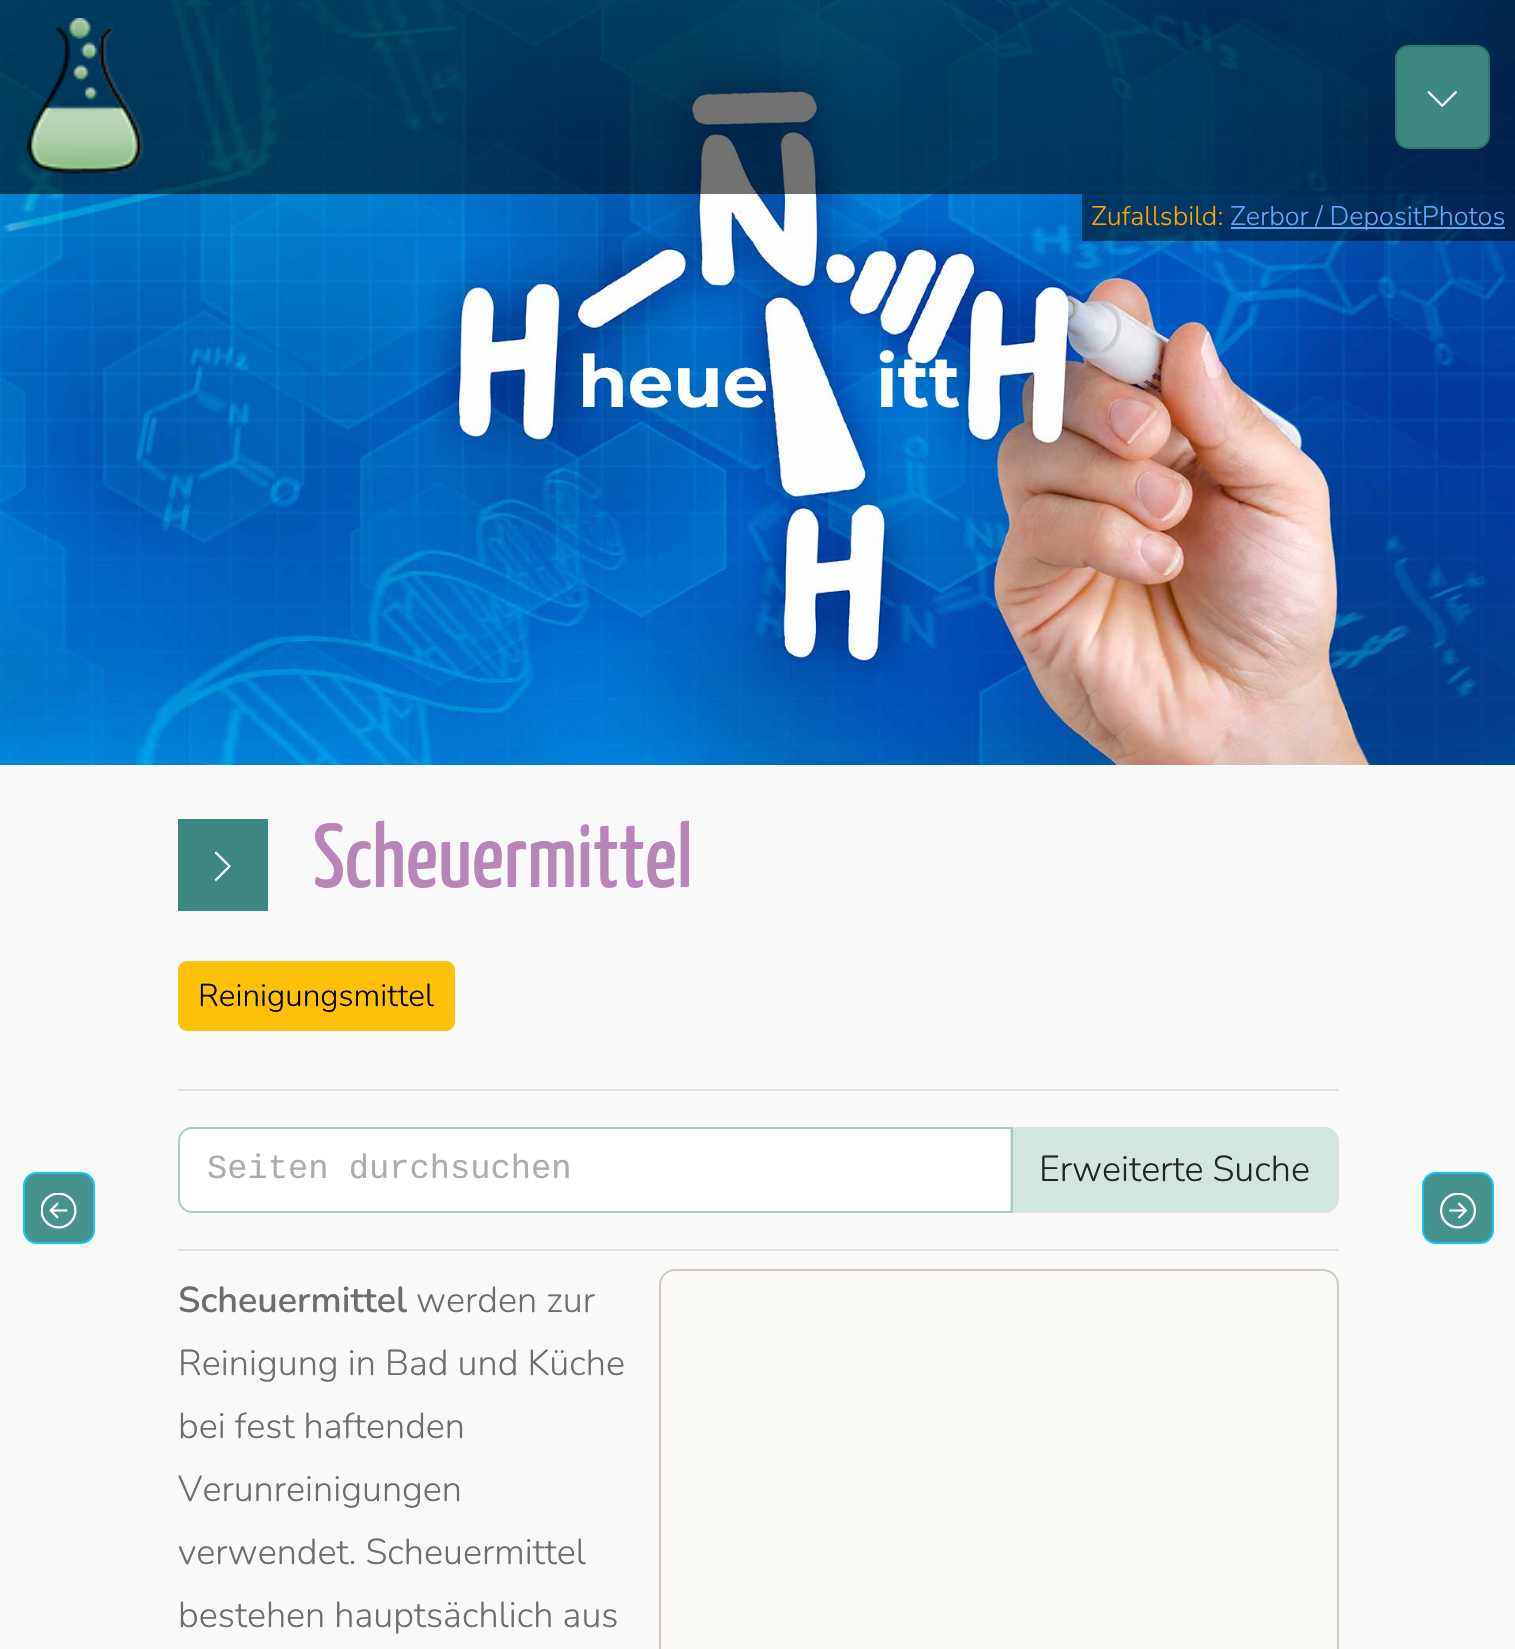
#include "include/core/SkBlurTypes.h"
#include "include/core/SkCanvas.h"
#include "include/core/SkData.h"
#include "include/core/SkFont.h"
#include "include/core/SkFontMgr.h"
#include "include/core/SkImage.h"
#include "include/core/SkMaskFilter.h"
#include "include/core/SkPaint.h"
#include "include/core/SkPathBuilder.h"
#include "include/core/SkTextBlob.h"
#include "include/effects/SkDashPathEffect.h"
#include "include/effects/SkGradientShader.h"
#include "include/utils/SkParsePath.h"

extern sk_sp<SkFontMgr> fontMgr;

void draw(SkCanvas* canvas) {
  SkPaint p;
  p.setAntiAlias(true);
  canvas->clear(SkColorSetRGB(249, 249, 249));
  canvas->drawImageRect(SkImages::DeferredFromEncodedData(SkData::MakeFromFileName("images/3.png")), SkRect::MakeLTRB(0, 0, 1515, 765), SkSamplingOptions());
  p.setColor(SkColorSetARGB(140, 0, 0, 0));
  canvas->drawRect(SkRect::MakeLTRB(0, 0, 1515, 194), p);
  canvas->drawImageRect(SkImages::DeferredFromEncodedData(SkData::MakeFromFileName("images/1.png")), SkRect::MakeLTRB(27, 18, 144, 175), SkSamplingOptions());
  p.setColor(SkColorSetRGB(60, 136, 129));
  canvas->drawRoundRect(SkRect::MakeLTRB(1395, 45, 1490, 149), 14, 14, p);
  p.setStyle(SkPaint::kStroke_Style);
  p.setStrokeWidth(2);
  p.setColor(SkColorSetARGB(38, 0, 0, 0));
  canvas->drawRoundRect(SkRect::MakeLTRB(1396, 46, 1489, 148), 13, 13, p);
  canvas->drawImageRect(SkImages::DeferredFromEncodedData(SkData::MakeFromFileName("images/2.png")), SkRect::MakeLTRB(1427, 91, 1457, 107), SkSamplingOptions());
  p.setStyle(SkPaint::kFill_Style);
  p.setColor(SkColorSetARGB(128, 0, 0, 0));
  canvas->drawRect(SkRect::MakeLTRB(1082, 194, 1515, 241), p);
  p.setColor(SkColorSetRGB(99, 168, 248));
  canvas->drawRect(SkRect::MakeLTRB(1231, 227, 1505, 229), p);
  p.setColor(SkColorSetRGB(60, 136, 129));
  canvas->drawRect(SkRect::MakeLTRB(178, 819, 268, 911), p);
  canvas->drawImageRect(SkImages::DeferredFromEncodedData(SkData::MakeFromFileName("images/4.png")), SkRect::MakeLTRB(214, 851, 231, 881), SkSamplingOptions());
  p.setColor(SkColorSetRGB(222, 226, 230));
  canvas->drawRect(SkRect::MakeLTRB(178, 1089, 1339, 1091), p);
  p.setColor(SkColorSetRGB(255, 193, 7));
  canvas->drawRoundRect(SkRect::MakeLTRB(179, 962, 454, 1030), 8, 8, p);
  p.setStyle(SkPaint::kStroke_Style);
  canvas->drawRoundRect(SkRect::MakeLTRB(179, 962, 454, 1030), 8, 8, p);
  p.setStyle(SkPaint::kFill_Style);
  p.setColor(SK_ColorWHITE);
  canvas->drawPath(SkPathBuilder().moveTo(191, 1130).lineTo(1010, 1130).lineTo(1010, 1211).lineTo(191, 1211).cubicTo(185, 1211, 180, 1206, 180, 1200).lineTo(180, 1141).cubicTo(180, 1135, 185, 1130, 191, 1130).close().detach(), p);
  p.setColor(SkColorSetRGB(209, 231, 221));
  canvas->drawPath(SkPathBuilder().moveTo(1011, 1128).lineTo(1325, 1128).cubicTo(1332, 1128, 1338, 1134, 1338, 1141).lineTo(1338, 1199).cubicTo(1338, 1206, 1332, 1212, 1325, 1212).lineTo(1011, 1212).close().detach(), p);
  p.setStyle(SkPaint::kStroke_Style);
  p.setColor(SkColorSetRGB(222, 226, 230));
  canvas->drawPath(SkPathBuilder().moveTo(1011, 1128).lineTo(1325, 1128).cubicTo(1332, 1128, 1338, 1134, 1338, 1141).lineTo(1338, 1199).cubicTo(1338, 1206, 1332, 1212, 1325, 1212).lineTo(1011, 1212).close().detach(), p);
  p.setColor(SkColorSetRGB(163, 207, 187));
  canvas->drawPath(SkPathBuilder().moveTo(192, 1128).lineTo(1012, 1128).lineTo(1012, 1212).lineTo(192, 1212).cubicTo(185, 1212, 179, 1206, 179, 1199).lineTo(179, 1141).cubicTo(179, 1134, 185, 1128, 192, 1128).close().detach(), p);
  p.setStyle(SkPaint::kFill_Style);
  p.setColor(SkColorSetRGB(222, 226, 230));
  canvas->drawRect(SkRect::MakeLTRB(178, 1249, 1339, 1251), p);
  p.setColor(SkColorSetRGB(252, 250, 247));
  canvas->drawRoundRect(SkRect::MakeLTRB(660, 1270, 1338, 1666), 15, 15, p);
  p.setStyle(SkPaint::kStroke_Style);
  p.setColor(SkColorSetRGB(206, 201, 188));
  canvas->drawRoundRect(SkRect::MakeLTRB(660, 1270, 1338, 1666), 15, 15, p);
  p.setStyle(SkPaint::kFill_Style);
  p.setColor(SkColorSetRGB(69, 147, 140));
  canvas->drawRoundRect(SkRect::MakeLTRB(24, 1173, 94, 1243), 13, 13, p);
  p.setStyle(SkPaint::kStroke_Style);
  p.setColor(SkColorSetRGB(13, 202, 240));
  canvas->drawRoundRect(SkRect::MakeLTRB(24, 1173, 94, 1243), 13, 13, p);
  canvas->drawImageRect(SkImages::DeferredFromEncodedData(SkData::MakeFromFileName("images/5.png")), SkRect::MakeLTRB(41, 1193, 77, 1229), SkSamplingOptions());
  p.setStyle(SkPaint::kFill_Style);
  p.setColor(SkColorSetRGB(69, 147, 140));
  canvas->drawRoundRect(SkRect::MakeLTRB(1423, 1173, 1493, 1243), 13, 13, p);
  p.setStyle(SkPaint::kStroke_Style);
  p.setColor(SkColorSetRGB(13, 202, 240));
  canvas->drawRoundRect(SkRect::MakeLTRB(1423, 1173, 1493, 1243), 13, 13, p);
  canvas->drawImageRect(SkImages::DeferredFromEncodedData(SkData::MakeFromFileName("images/6.png")), SkRect::MakeLTRB(1440, 1193, 1476, 1229), SkSamplingOptions());
  SkFont font1(fontMgr->matchFamilyStyle("Nunito", SkFontStyle(300, SkFontStyle::kNormal_Width, SkFontStyle::kUpright_Slant)), 27);
  font1.setSubpixel(true);
  p.setStyle(SkPaint::kFill_Style);
  p.setColor(SkColorSetRGB(255, 165, 0));
  canvas->drawString("Zufallsbild:", 1091, 225, font1, p);
  p.setColor(SkColorSetRGB(99, 168, 248));
  canvas->drawString("Zerbor / DepositPhotos", 1230, 225, font1, p);
  SkFont font2(fontMgr->matchFamilyStyle("Montserrat", SkFontStyle::Bold()), 72);
  font2.setSubpixel(true);
  p.setColor(SK_ColorWHITE);
  canvas->drawString("heue", 578, 407, font2, p);
  canvas->drawString("itt", 876, 407, font2, p);
  SkFont font3(fontMgr->matchFamilyStyle("Yanone Kaffeesatz", SkFontStyle(500, SkFontStyle::kNormal_Width, SkFontStyle::kUpright_Slant)), 90);
  font3.setSubpixel(true);
  p.setColor(SkColorSetRGB(184, 133, 184));
  canvas->drawString("Scheuermittel", 313, 887, font3, p);
  SkFont font4(fontMgr->matchFamilyStyle("Nunito", SkFontStyle(300, SkFontStyle::kNormal_Width, SkFontStyle::kUpright_Slant)), 31.5f);
  font4.setSubpixel(true);
  p.setColor(SK_ColorBLACK);
  canvas->drawString("Reinigungsmittel", 198, 1006, font4, p);
  SkFont font5(fontMgr->matchFamilyStyle("Liberation Mono", SkFontStyle::Normal()), 33.75f);
  font5.setSubpixel(true);
  p.setColor(SkColorSetRGB(172, 172, 172));
  canvas->drawString("Seiten durchsuchen", 207, 1178, font5, p);
  SkFont font6(fontMgr->matchFamilyStyle("Nunito", SkFontStyle(300, SkFontStyle::kNormal_Width, SkFontStyle::kUpright_Slant)), 36);
  font6.setSubpixel(true);
  p.setColor(SkColorSetRGB(33, 37, 41));
  canvas->drawString("Erweiterte Suche", 1039, 1181, font6, p);
  SkFont font7(fontMgr->matchFamilyStyle("Nunito", SkFontStyle(600, SkFontStyle::kNormal_Width, SkFontStyle::kUpright_Slant)), 36);
  font7.setSubpixel(true);
  p.setColor(SkColorSetRGB(109, 109, 109));
  canvas->drawString("Scheuermittel", 178, 1312, font7, p);
  canvas->drawString("werden zur", 416, 1312, font6, p);
  canvas->drawString("Reinigung in Bad und Küche", 178, 1375, font6, p);
  canvas->drawString("bei fest haftenden", 178, 1438, font6, p);
  canvas->drawString("Verunreinigungen", 178, 1501, font6, p);
  canvas->drawString("verwendet. Scheuermittel", 178, 1564, font6, p);
  canvas->drawString("bestehen hauptsächlich aus", 178, 1627, font6, p);
}
